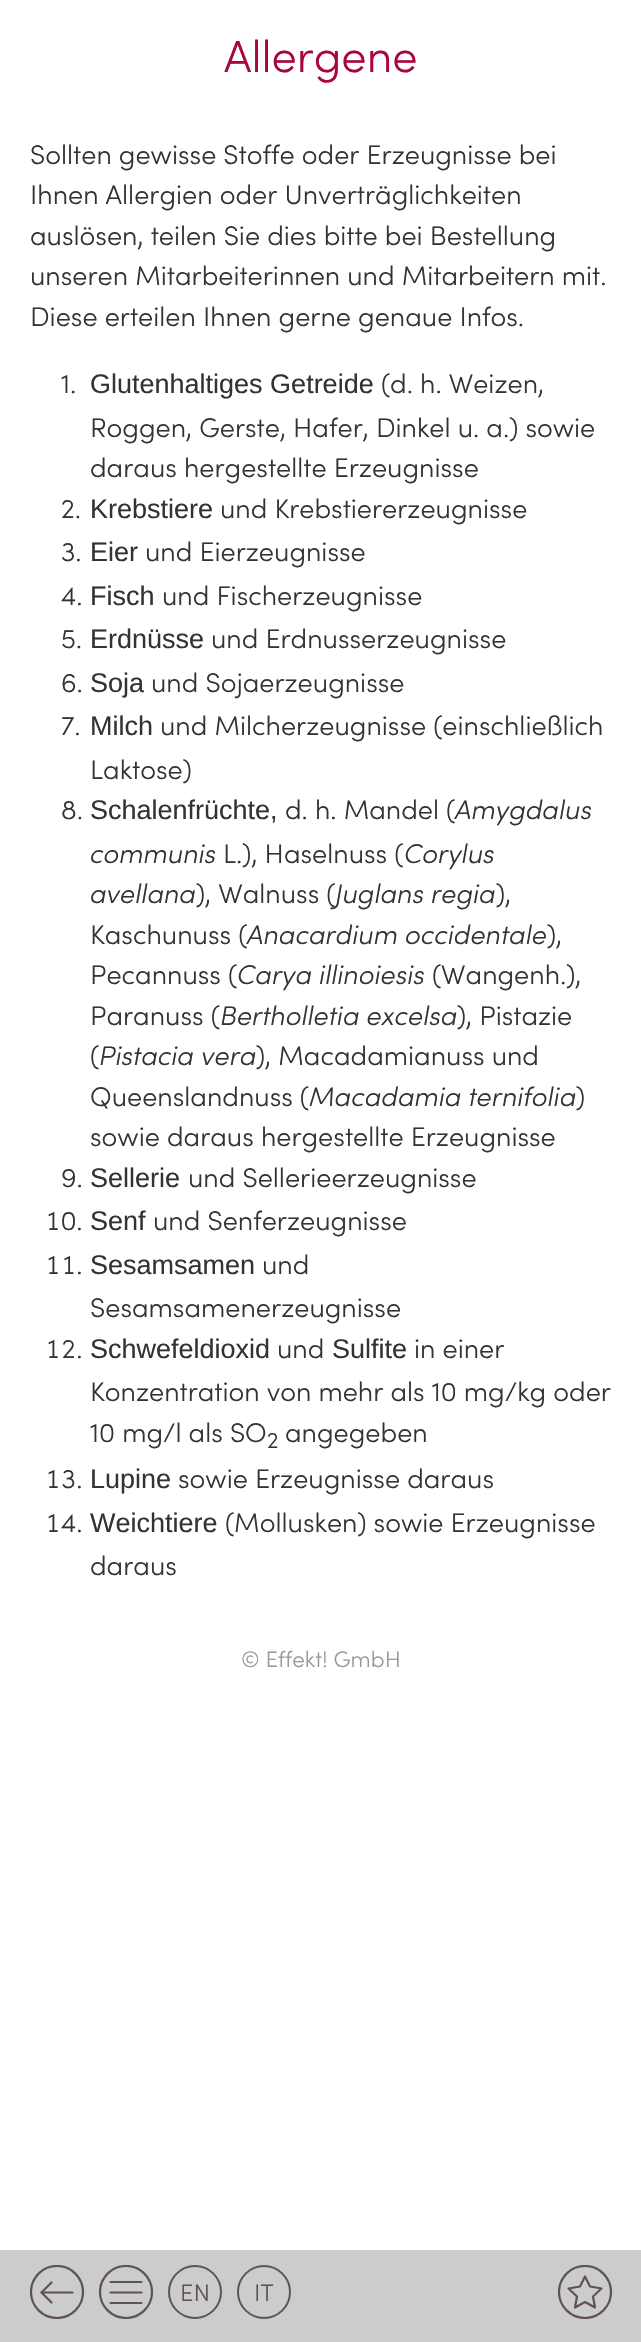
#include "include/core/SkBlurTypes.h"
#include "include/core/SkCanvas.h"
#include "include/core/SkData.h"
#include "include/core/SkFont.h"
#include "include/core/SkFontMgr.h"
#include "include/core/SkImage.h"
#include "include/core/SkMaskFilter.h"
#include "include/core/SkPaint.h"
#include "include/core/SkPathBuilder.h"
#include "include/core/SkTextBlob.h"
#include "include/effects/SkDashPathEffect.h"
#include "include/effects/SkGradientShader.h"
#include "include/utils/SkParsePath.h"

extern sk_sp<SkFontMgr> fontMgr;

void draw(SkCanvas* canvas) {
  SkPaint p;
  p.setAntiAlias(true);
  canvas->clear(SK_ColorWHITE);
  p.setColor(SkColorSetRGB(204, 204, 204));
  canvas->drawRect(SkRect::MakeLTRB(0, 2250, 641, 2342), p);
  p.setStyle(SkPaint::kStroke_Style);
  p.setStrokeWidth(2.2f);
  p.setStrokeCap(SkPaint::kRound_Cap);
  p.setStrokeJoin(SkPaint::kRound_Join);
  p.setColor(SkColorSetRGB(95, 83, 80));
  canvas->drawPath(SkPathBuilder().moveTo(51.5f, 2302.5f).lineTo(41.5f, 2292.5f).lineTo(51.5f, 2282.5f).detach(), p);
  p.setStrokeJoin(SkPaint::kMiter_Join);
  canvas->drawPath(SkPathBuilder().moveTo(41.5f, 2292.5f).lineTo(72.5f, 2292.5f).detach(), p);
  canvas->save();
  canvas->clipRect(SkRect::MakeLTRB(30, 2265, 84, 2319));
  p.setStrokeCap(SkPaint::kButt_Cap);
  canvas->drawCircle(57, 2292, 26, p);
  canvas->restore();
  p.setStrokeCap(SkPaint::kRound_Cap);
  canvas->drawPath(SkPathBuilder().moveTo(110.5f, 2292.5f).lineTo(141.5f, 2292.5f).moveTo(110.5f, 2303).lineTo(141.5f, 2303).moveTo(110.5f, 2282).lineTo(141.5f, 2282).detach(), p);
  canvas->save();
  canvas->clipRect(SkRect::MakeLTRB(99, 2265, 153, 2319));
  p.setStrokeCap(SkPaint::kButt_Cap);
  canvas->drawCircle(126, 2292, 26, p);
  canvas->restore();
  p.setStrokeWidth(2);
  canvas->drawCircle(195, 2292, 26, p);
  canvas->drawCircle(264, 2292, 26, p);
  canvas->save();
  canvas->clipRect(SkRect::MakeLTRB(558, 2265, 612, 2319));
  p.setStrokeWidth(2.2f);
  canvas->drawCircle(585, 2292, 26, p);
  canvas->restore();
  p.setStrokeCap(SkPaint::kRound_Cap);
  p.setStrokeJoin(SkPaint::kRound_Join);
  canvas->drawPath(SkPathBuilder().moveTo(585, 2276.5f).lineTo(590, 2286.5f).lineTo(601.5f, 2288.5f).lineTo(593, 2296.5f).lineTo(595, 2307.5f).lineTo(585, 2302).lineTo(575, 2307.5f).lineTo(577, 2296.5f).lineTo(568.5f, 2288.5f).lineTo(580, 2286.5f).close().detach(), p);
  SkFont font1(fontMgr->matchFamilyStyle("Sofia", SkFontStyle(300, SkFontStyle::kNormal_Width, SkFontStyle::kUpright_Slant)), 45);
  font1.setSubpixel(true);
  p.setStyle(SkPaint::kFill_Style);
  p.setColor(SkColorSetRGB(172, 5, 61));
  canvas->drawString("Allergene", 224, 72, font1, p);
  SkFont font2(fontMgr->matchFamilyStyle("Sofia", SkFontStyle(300, SkFontStyle::kNormal_Width, SkFontStyle::kUpright_Slant)), 27);
  font2.setSubpixel(true);
  p.setColor(SkColorSetRGB(51, 51, 51));
  canvas->drawString("Sollten gewisse Stoffe oder Erzeugnisse bei", 30, 164, font2, p);
  canvas->drawString("Ihnen Allergien oder Unverträglichkeiten", 30, 204, font2, p);
  canvas->drawString("auslösen, teilen Sie dies bitte bei Bestellung", 30, 245, font2, p);
  canvas->drawString("unseren Mitarbeiterinnen und Mitarbeitern mit.", 30, 285, font2, p);
  canvas->drawString("Diese erteilen Ihnen gerne genaue Infos.", 30, 326, font2, p);
  canvas->drawString("1.", 61, 393, font2, p);
  SkFont font3(fontMgr->matchFamilyStyle("Liberation Sans", SkFontStyle::Normal()), 27);
  font3.setSubpixel(true);
  canvas->drawString("Glutenhaltiges Getreide", 90, 393, font3, p);
  canvas->drawString("(d. h. Weizen,", 381, 393, font2, p);
  canvas->drawString("Roggen, Gerste, Hafer, Dinkel u. a.) sowie", 90, 437, font2, p);
  canvas->drawString("daraus hergestellte Erzeugnisse", 90, 477, font2, p);
  canvas->drawString("2.", 61, 518, font2, p);
  canvas->drawString("Krebstiere", 90, 518, font3, p);
  canvas->drawString("und Krebstiererzeugnisse", 220, 518, font2, p);
  canvas->drawString("3.", 61, 561, font2, p);
  canvas->drawString("Eier", 90, 561, font3, p);
  canvas->drawString("und Eierzeugnisse", 145, 561, font2, p);
  canvas->drawString("4.", 61, 605, font2, p);
  canvas->drawString("Fisch", 90, 605, font3, p);
  canvas->drawString("und Fischerzeugnisse", 162, 605, font2, p);
  canvas->drawString("5.", 61, 648, font2, p);
  canvas->drawString("Erdnüsse", 90, 648, font3, p);
  canvas->drawString("und Erdnusserzeugnisse", 211, 648, font2, p);
  canvas->drawString("6.", 61, 692, font2, p);
  canvas->drawString("Soja", 90, 692, font3, p);
  canvas->drawString("und Sojaerzeugnisse", 151, 692, font2, p);
  canvas->drawString("7.", 61, 735, font2, p);
  canvas->drawString("Milch", 90, 735, font3, p);
  canvas->drawString("und Milcherzeugnisse (einschließlich", 160, 735, font2, p);
  canvas->drawString("Laktose)", 90, 779, font2, p);
  canvas->drawString("8.", 61, 819, font2, p);
  canvas->drawString("Schalenfrüchte,", 90, 819, font3, p);
  canvas->drawString("d. h. Mandel (", 285, 819, font2, p);
  SkFont font4(fontMgr->matchFamilyStyle("Sofia", SkFontStyle(300, SkFontStyle::kNormal_Width, SkFontStyle::kItalic_Slant)), 27);
  font4.setSubpixel(true);
  canvas->drawString("Amygdalus", 455, 819, font4, p);
  canvas->drawString("communis", 90, 863, font4, p);
  canvas->drawString("L.), Haselnuss (", 223, 863, font2, p);
  canvas->drawString("Corylus", 404, 863, font4, p);
  canvas->drawString("avellana", 90, 903, font4, p);
  canvas->drawString("), Walnuss (", 196, 903, font2, p);
  canvas->drawString("Juglans regia", 335, 903, font4, p);
  canvas->drawString("),", 496, 903, font2, p);
  canvas->drawString("Kaschunuss (", 90, 944, font2, p);
  canvas->drawString("Anacardium occidentale", 247, 944, font4, p);
  canvas->drawString("),", 547, 944, font2, p);
  canvas->drawString("Pecannuss (", 90, 984, font2, p);
  canvas->drawString("Carya illinoiesis", 237, 984, font4, p);
  canvas->drawString("(Wangenh.),", 432, 984, font2, p);
  canvas->drawString("Paranuss (", 90, 1025, font2, p);
  canvas->drawString("Bertholletia excelsa", 220, 1025, font4, p);
  canvas->drawString("), Pistazie", 457, 1025, font2, p);
  canvas->drawString("(", 90, 1065, font2, p);
  canvas->drawString("Pistacia vera", 99, 1065, font4, p);
  canvas->drawString("), Macadamianuss und", 256, 1065, font2, p);
  canvas->drawString("Queenslandnuss (", 90, 1106, font2, p);
  canvas->drawString("Macadamia ternifolia", 309, 1106, font4, p);
  canvas->drawString(")", 576, 1106, font2, p);
  canvas->drawString("sowie daraus hergestellte Erzeugnisse", 90, 1146, font2, p);
  canvas->drawString("9.", 61, 1187, font2, p);
  canvas->drawString("Sellerie", 90, 1187, font3, p);
  canvas->drawString("und Sellerieerzeugnisse", 188, 1187, font2, p);
  SkFont font5(fontMgr->matchFamilyStyle("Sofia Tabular", SkFontStyle(300, SkFontStyle::kNormal_Width, SkFontStyle::kUpright_Slant)), 27);
  font5.setSubpixel(true);
  canvas->drawString("10.", 45, 1230, font5, p);
  canvas->drawString("Senf", 90, 1230, font3, p);
  canvas->drawString("und Senferzeugnisse", 153, 1230, font2, p);
  canvas->drawString("11.", 45, 1274, font5, p);
  canvas->drawString("Sesamsamen", 90, 1274, font3, p);
  canvas->drawString("und", 262, 1274, font2, p);
  canvas->drawString("Sesamsamenerzeugnisse", 90, 1317, font2, p);
  canvas->drawString("12.", 45, 1358, font5, p);
  canvas->drawString("Schwefeldioxid", 90, 1358, font3, p);
  canvas->drawString("und", 277, 1358, font2, p);
  canvas->drawString("Sulfite", 332, 1358, font3, p);
  canvas->drawString("in einer", 414, 1358, font2, p);
  canvas->drawString("Konzentration von mehr als 10 mg/kg oder", 90, 1401, font2, p);
  canvas->drawString("10 mg/l als SO", 90, 1442, font2, p);
  SkFont font6(fontMgr->matchFamilyStyle("Sofia", SkFontStyle(300, SkFontStyle::kNormal_Width, SkFontStyle::kUpright_Slant)), 22.5f);
  font6.setSubpixel(true);
  canvas->drawString("2", 267, 1448, font6, p);
  canvas->drawString("angegeben", 285, 1442, font2, p);
  canvas->drawString("13.", 45, 1488, font5, p);
  canvas->drawString("Lupine", 90, 1488, font3, p);
  canvas->drawString("sowie Erzeugnisse daraus", 178, 1488, font2, p);
  canvas->drawString("14.", 45, 1532, font5, p);
  canvas->drawString("Weichtiere", 90, 1532, font3, p);
  canvas->drawString("(Mollusken) sowie Erzeugnisse", 225, 1532, font2, p);
  canvas->drawString("daraus", 90, 1575, font2, p);
  p.setColor(SkColorSetRGB(153, 153, 153));
  canvas->drawString("© Effekt! GmbH", 241, 1667, font6, p);
  SkFont font7(fontMgr->matchFamilyStyle("Sofia", SkFontStyle(300, SkFontStyle::kNormal_Width, SkFontStyle::kUpright_Slant)), 24);
  font7.setSubpixel(true);
  p.setColor(SkColorSetRGB(95, 83, 80));
  canvas->drawString("EN", 180, 2301, font7, p);
  canvas->drawString("IT", 254, 2301, font7, p);
}
